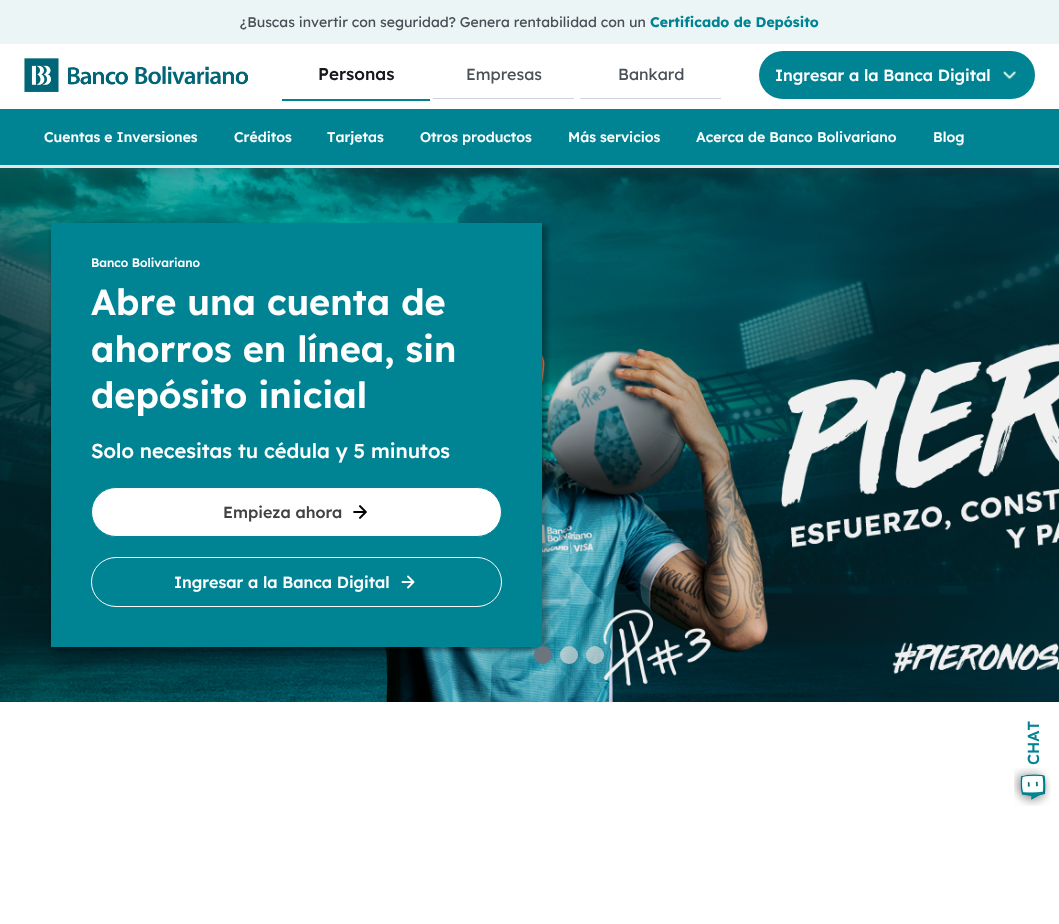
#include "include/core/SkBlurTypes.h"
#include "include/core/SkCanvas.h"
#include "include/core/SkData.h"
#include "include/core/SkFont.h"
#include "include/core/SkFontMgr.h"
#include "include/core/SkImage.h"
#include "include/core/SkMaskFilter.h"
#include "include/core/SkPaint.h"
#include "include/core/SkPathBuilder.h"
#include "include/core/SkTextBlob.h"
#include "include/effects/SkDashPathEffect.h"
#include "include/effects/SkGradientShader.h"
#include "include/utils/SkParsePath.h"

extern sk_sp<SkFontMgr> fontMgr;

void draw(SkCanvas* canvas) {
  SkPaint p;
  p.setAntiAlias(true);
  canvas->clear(SK_ColorWHITE);
  p.setColor(SkColorSetRGB(235, 245, 246));
  canvas->drawRect(SkRect::MakeLTRB(0, 0, 1059, 44), p);
  canvas->drawImageRect(SkImages::DeferredFromEncodedData(SkData::MakeFromFileName("images/1.png")), SkRect::MakeLTRB(24, 58, 248, 92), SkSamplingOptions());
  p.setColor(SkColorSetRGB(0, 131, 146));
  canvas->drawRect(SkRect::MakeLTRB(282, 99, 430, 101), p);
  p.setColor(SkColorSetRGB(206, 212, 218));
  canvas->drawRect(SkRect::MakeLTRB(433, 98, 574, 99), p);
  canvas->drawRect(SkRect::MakeLTRB(580, 98, 721, 99), p);
  p.setColor(SkColorSetRGB(0, 131, 146));
  canvas->drawRoundRect(SkRect::MakeLTRB(759, 51, 1035, 99), 24, 24, p);
  canvas->drawImageRect(SkImages::DeferredFromEncodedData(SkData::MakeFromFileName("images/2.png")), SkRect::MakeLTRB(1003, 71, 1017, 80), SkSamplingOptions());
  canvas->drawImageRect(SkImages::DeferredFromEncodedData(SkData::MakeFromFileName("images/3.png")), SkRect::MakeLTRB(0, 168, 1059, 702), SkSamplingOptions());
  p.setColor(SkColorSetARGB(38, 73, 74, 82));
  p.setMaskFilter(SkMaskFilter::MakeBlur(kNormal_SkBlurStyle, 2));
  canvas->drawRect(SkRect::MakeLTRB(-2, 113, 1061, 173), p);
  p.setMaskFilter(nullptr);
  p.setColor(SkColorSetRGB(0, 131, 146));
  canvas->drawRect(SkRect::MakeLTRB(0, 109, 1059, 165), p);
  p.setColor(SkColorSetARGB(64, 0, 0, 0));
  p.setMaskFilter(SkMaskFilter::MakeBlur(kNormal_SkBlurStyle, 2));
  canvas->drawRect(SkRect::MakeLTRB(51, 227, 542, 651), p);
  p.setMaskFilter(nullptr);
  p.setMaskFilter(SkMaskFilter::MakeBlur(kNormal_SkBlurStyle, 2));
  canvas->drawRect(SkRect::MakeLTRB(57, 225, 548, 649), p);
  p.setMaskFilter(nullptr);
  p.setColor(SkColorSetRGB(0, 131, 146));
  canvas->drawRect(SkRect::MakeLTRB(51, 223, 542, 647), p);
  p.setColor(SK_ColorWHITE);
  canvas->drawRoundRect(SkRect::MakeLTRB(91.5f, 487.5f, 501.5f, 536.5f), 24.5f, 24.5f, p);
  p.setStyle(SkPaint::kStroke_Style);
  p.setStrokeWidth(1);
  p.setColor(SkColorSetRGB(0, 131, 146));
  canvas->drawRoundRect(SkRect::MakeLTRB(91.5f, 487.5f, 501.5f, 536.5f), 24.5f, 24.5f, p);
  canvas->drawImageRect(SkImages::DeferredFromEncodedData(SkData::MakeFromFileName("images/4.png")), SkRect::MakeLTRB(353, 505, 367, 519), SkSamplingOptions());
  p.setColor(SK_ColorWHITE);
  canvas->drawRoundRect(SkRect::MakeLTRB(91.5f, 557.5f, 501.5f, 606.5f), 24.5f, 24.5f, p);
  p.setStrokeWidth(1.9f);
  p.setStrokeCap(SkPaint::kRound_Cap);
  p.setStrokeJoin(SkPaint::kRound_Join);
  canvas->drawPath(SkPathBuilder().moveTo(402.5f, 582).lineTo(413.5f, 582).moveTo(408, 576.5f).lineTo(413.5f, 582).lineTo(408, 587.5f).detach(), p);
  p.setStyle(SkPaint::kFill_Style);
  p.setColor(SkColorSetRGB(108, 117, 125));
  canvas->drawCircle(543, 655, 9, p);
  p.setColor(SkColorSetARGB(179, 217, 217, 217));
  canvas->drawCircle(569, 655, 9, p);
  canvas->drawCircle(595, 655, 9, p);
  canvas->drawImageRect(SkImages::DeferredFromEncodedData(SkData::MakeFromFileName("images/5.png")), SkRect::MakeLTRB(1014, 768, 1051, 806), SkSamplingOptions());
  SkFont font1(fontMgr->matchFamilyStyle("Lexend", SkFontStyle::Normal()), 14);
  font1.setSubpixel(true);
  p.setColor(SkColorSetRGB(73, 80, 87));
  canvas->drawString("¿Buscas invertir con seguridad? Genera rentabilidad con un", 240, 27, font1, p);
  SkFont font2(fontMgr->matchFamilyStyle("Lexend", SkFontStyle::Bold()), 14);
  font2.setSubpixel(true);
  p.setColor(SkColorSetRGB(0, 131, 146));
  canvas->drawString("Certificado de Depósito", 650, 27, font2, p);
  SkFont font3(fontMgr->matchFamilyStyle("Lexend", SkFontStyle(500, SkFontStyle::kNormal_Width, SkFontStyle::kUpright_Slant)), 17);
  font3.setSubpixel(true);
  p.setColor(SkColorSetRGB(23, 25, 31));
  canvas->drawString("Personas", 318, 80, font3, p);
  SkFont font4(fontMgr->matchFamilyStyle("Lexend", SkFontStyle::Normal()), 16);
  font4.setSubpixel(true);
  p.setColor(SkColorSetRGB(73, 80, 87));
  canvas->drawString("Empresas", 466, 80, font4, p);
  canvas->drawString("Bankard", 618, 80, font4, p);
  SkFont font5(fontMgr->matchFamilyStyle("Lexend", SkFontStyle(500, SkFontStyle::kNormal_Width, SkFontStyle::kUpright_Slant)), 16);
  font5.setSubpixel(true);
  p.setColor(SK_ColorWHITE);
  canvas->drawString("Ingresar a la Banca Digital", 775, 81, font5, p);
  SkFont font6(fontMgr->matchFamilyStyle("Lexend", SkFontStyle(500, SkFontStyle::kNormal_Width, SkFontStyle::kUpright_Slant)), 14);
  font6.setSubpixel(true);
  canvas->drawString("Cuentas e Inversiones", 44, 142, font6, p);
  canvas->drawString("Créditos", 234, 142, font6, p);
  canvas->drawString("Tarjetas", 327, 142, font6, p);
  canvas->drawString("Otros productos", 420, 142, font6, p);
  canvas->drawString("Más servicios", 568, 142, font6, p);
  canvas->drawString("Acerca de Banco Bolivariano", 696, 142, font6, p);
  canvas->drawString("Blog", 933, 142, font6, p);
  SkFont font7(fontMgr->matchFamilyStyle("Lexend", SkFontStyle(500, SkFontStyle::kNormal_Width, SkFontStyle::kUpright_Slant)), 12);
  font7.setSubpixel(true);
  canvas->drawString("Banco Bolivariano", 91, 267, font7, p);
  SkFont font8(fontMgr->matchFamilyStyle("Lexend", SkFontStyle(600, SkFontStyle::kNormal_Width, SkFontStyle::kUpright_Slant)), 36);
  font8.setSubpixel(true);
  canvas->drawString("Abre una cuenta de", 91, 315, font8, p);
  canvas->drawString("ahorros en línea, sin", 91, 362, font8, p);
  canvas->drawString("depósito inicial", 91, 408, font8, p);
  SkFont font9(fontMgr->matchFamilyStyle("Lexend", SkFontStyle(500, SkFontStyle::kNormal_Width, SkFontStyle::kUpright_Slant)), 20);
  font9.setSubpixel(true);
  canvas->drawString("Solo necesitas tu cédula y 5 minutos", 91, 458, font9, p);
  p.setColor(SkColorSetRGB(66, 66, 66));
  canvas->drawString("Empieza ahora", 223, 518, font5, p);
  p.setColor(SK_ColorWHITE);
  canvas->drawString("Ingresar a la Banca Digital", 174, 588, font5, p);
  p.setColor(SkColorSetRGB(0, 131, 146));
  canvas->save();
  canvas->rotate(-90, 1039, 765);
  canvas->drawString("CHAT", 1039, 765, font5, p);
  canvas->restore();
}
